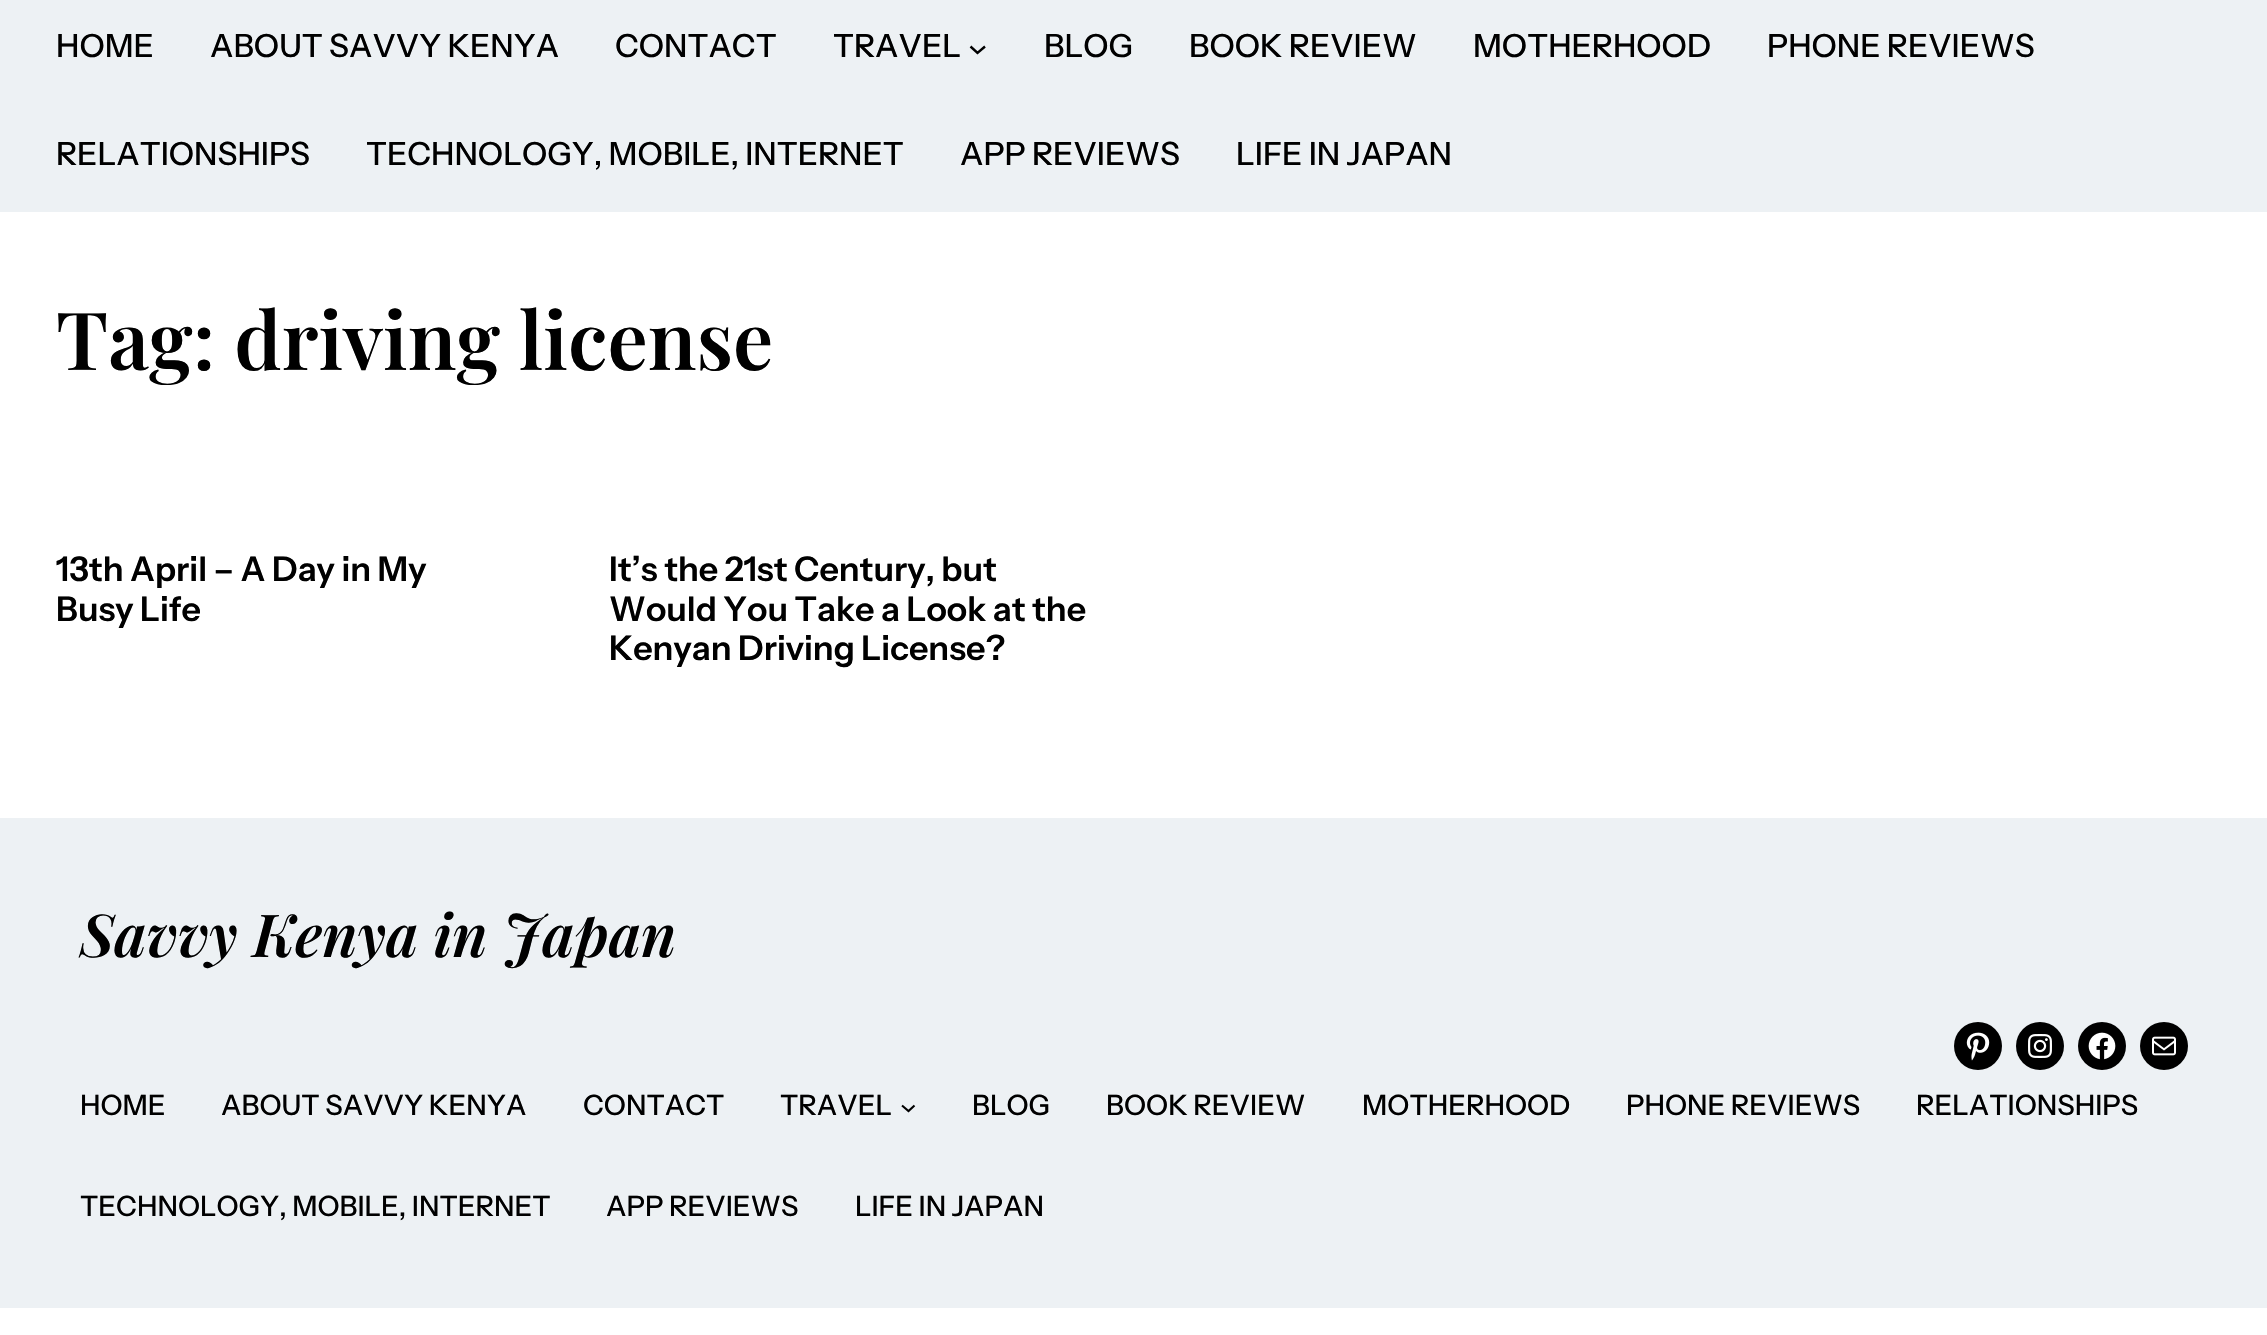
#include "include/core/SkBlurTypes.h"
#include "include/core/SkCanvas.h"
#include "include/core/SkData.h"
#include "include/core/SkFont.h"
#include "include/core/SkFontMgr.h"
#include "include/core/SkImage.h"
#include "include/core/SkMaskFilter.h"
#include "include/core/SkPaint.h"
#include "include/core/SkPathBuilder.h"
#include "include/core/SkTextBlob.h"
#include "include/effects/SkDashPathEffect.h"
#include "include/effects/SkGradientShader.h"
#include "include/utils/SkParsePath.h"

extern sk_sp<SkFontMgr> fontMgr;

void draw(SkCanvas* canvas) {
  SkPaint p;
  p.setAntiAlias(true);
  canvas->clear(SK_ColorWHITE);
  p.setColor(SkColorSetRGB(237, 241, 244));
  canvas->drawRect(SkRect::MakeLTRB(0, 0, 2267, 212), p);
  p.setStyle(SkPaint::kStroke_Style);
  p.setStrokeWidth(2.4f);
  p.setColor(SK_ColorBLACK);
  canvas->drawPath(SkPathBuilder().moveTo(970.5f, 46.5f).lineTo(977.5f, 53).lineTo(985, 46.5f).detach(), p);
  p.setStyle(SkPaint::kFill_Style);
  p.setColor(SkColorSetRGB(237, 241, 244));
  canvas->drawRect(SkRect::MakeLTRB(0, 818, 2267, 1308), p);
  p.setColor(SK_ColorBLACK);
  canvas->drawCircle(1978, 1046, 24, p);
  canvas->drawImageRect(SkImages::DeferredFromEncodedData(SkData::MakeFromFileName("images/1.png")), SkRect::MakeLTRB(1966, 1032, 1990, 1061), SkSamplingOptions());
  canvas->drawCircle(2040, 1046, 24, p);
  canvas->drawImageRect(SkImages::DeferredFromEncodedData(SkData::MakeFromFileName("images/2.png")), SkRect::MakeLTRB(2028, 1034, 2052, 1058), SkSamplingOptions());
  canvas->drawCircle(2102, 1046, 24, p);
  canvas->drawImageRect(SkImages::DeferredFromEncodedData(SkData::MakeFromFileName("images/3.png")), SkRect::MakeLTRB(2088, 1032, 2116, 1060), SkSamplingOptions());
  canvas->drawCircle(2164, 1046, 24, p);
  canvas->drawImageRect(SkImages::DeferredFromEncodedData(SkData::MakeFromFileName("images/4.png")), SkRect::MakeLTRB(2152, 1036, 2176, 1056), SkSamplingOptions());
  p.setStyle(SkPaint::kStroke_Style);
  p.setStrokeWidth(2.1f);
  canvas->drawPath(SkPathBuilder().moveTo(902, 1105.5f).lineTo(908.5f, 1111).lineTo(914.5f, 1105.5f).detach(), p);
  SkFont font1(fontMgr->matchFamilyStyle("Instrument Sans", SkFontStyle(500, SkFontStyle::kNormal_Width, SkFontStyle::kUpright_Slant)), 32);
  font1.setSubpixel(true);
  p.setStyle(SkPaint::kFill_Style);
  canvas->drawString("HOME", 56, 57, font1, p);
  canvas->drawString("ABOUT SAVVY KENYA", 210, 57, font1, p);
  canvas->drawString("CONTACT", 615, 57, font1, p);
  canvas->drawString("TRAVEL", 833, 57, font1, p);
  canvas->drawString("BLOG", 1044, 57, font1, p);
  canvas->drawString("BOOK REVIEW", 1189, 57, font1, p);
  canvas->drawString("MOTHERHOOD", 1473, 57, font1, p);
  canvas->drawString("PHONE REVIEWS", 1767, 57, font1, p);
  canvas->drawString("RELATIONSHIPS", 56, 165, font1, p);
  canvas->drawString("TECHNOLOGY, MOBILE, INTERNET", 366, 165, font1, p);
  canvas->drawString("APP REVIEWS", 960, 165, font1, p);
  canvas->drawString("LIFE IN JAPAN", 1236, 165, font1, p);
  SkFont font2(fontMgr->matchFamilyStyle("Playfair Display", SkFontStyle(600, SkFontStyle::kNormal_Width, SkFontStyle::kUpright_Slant)), 80);
  font2.setSubpixel(true);
  canvas->drawString("Tag: driving license", 56, 370, font2, p);
  SkFont font3(fontMgr->matchFamilyStyle("Instrument Sans", SkFontStyle(600, SkFontStyle::kNormal_Width, SkFontStyle::kUpright_Slant)), 34);
  font3.setSubpixel(true);
  canvas->drawString("13th April – A Day in My", 56, 581, font3, p);
  canvas->drawString("Busy Life", 56, 621, font3, p);
  canvas->drawString("It’s the 21st Century, but", 609, 581, font3, p);
  canvas->drawString("Would You Take a Look at the", 609, 621, font3, p);
  canvas->drawString("Kenyan Driving License?", 609, 660, font3, p);
  SkFont font4(fontMgr->matchFamilyStyle("Playfair Display", SkFontStyle(600, SkFontStyle::kNormal_Width, SkFontStyle::kItalic_Slant)), 59.25f);
  font4.setSubpixel(true);
  canvas->drawString("Savvy Kenya in Japan", 80, 957, font4, p);
  SkFont font5(fontMgr->matchFamilyStyle("Instrument Sans", SkFontStyle(500, SkFontStyle::kNormal_Width, SkFontStyle::kUpright_Slant)), 28);
  font5.setSubpixel(true);
  canvas->drawString("HOME", 80, 1115, font5, p);
  canvas->drawString("ABOUT SAVVY KENYA", 221, 1115, font5, p);
  canvas->drawString("CONTACT", 583, 1115, font5, p);
  canvas->drawString("TRAVEL", 780, 1115, font5, p);
  canvas->drawString("BLOG", 972, 1115, font5, p);
  canvas->drawString("BOOK REVIEW", 1106, 1115, font5, p);
  canvas->drawString("MOTHERHOOD", 1362, 1115, font5, p);
  canvas->drawString("PHONE REVIEWS", 1626, 1115, font5, p);
  canvas->drawString("RELATIONSHIPS", 1916, 1115, font5, p);
  canvas->drawString("TECHNOLOGY, MOBILE, INTERNET", 80, 1216, font5, p);
  canvas->drawString("APP REVIEWS", 606, 1216, font5, p);
  canvas->drawString("LIFE IN JAPAN", 855, 1216, font5, p);
}
